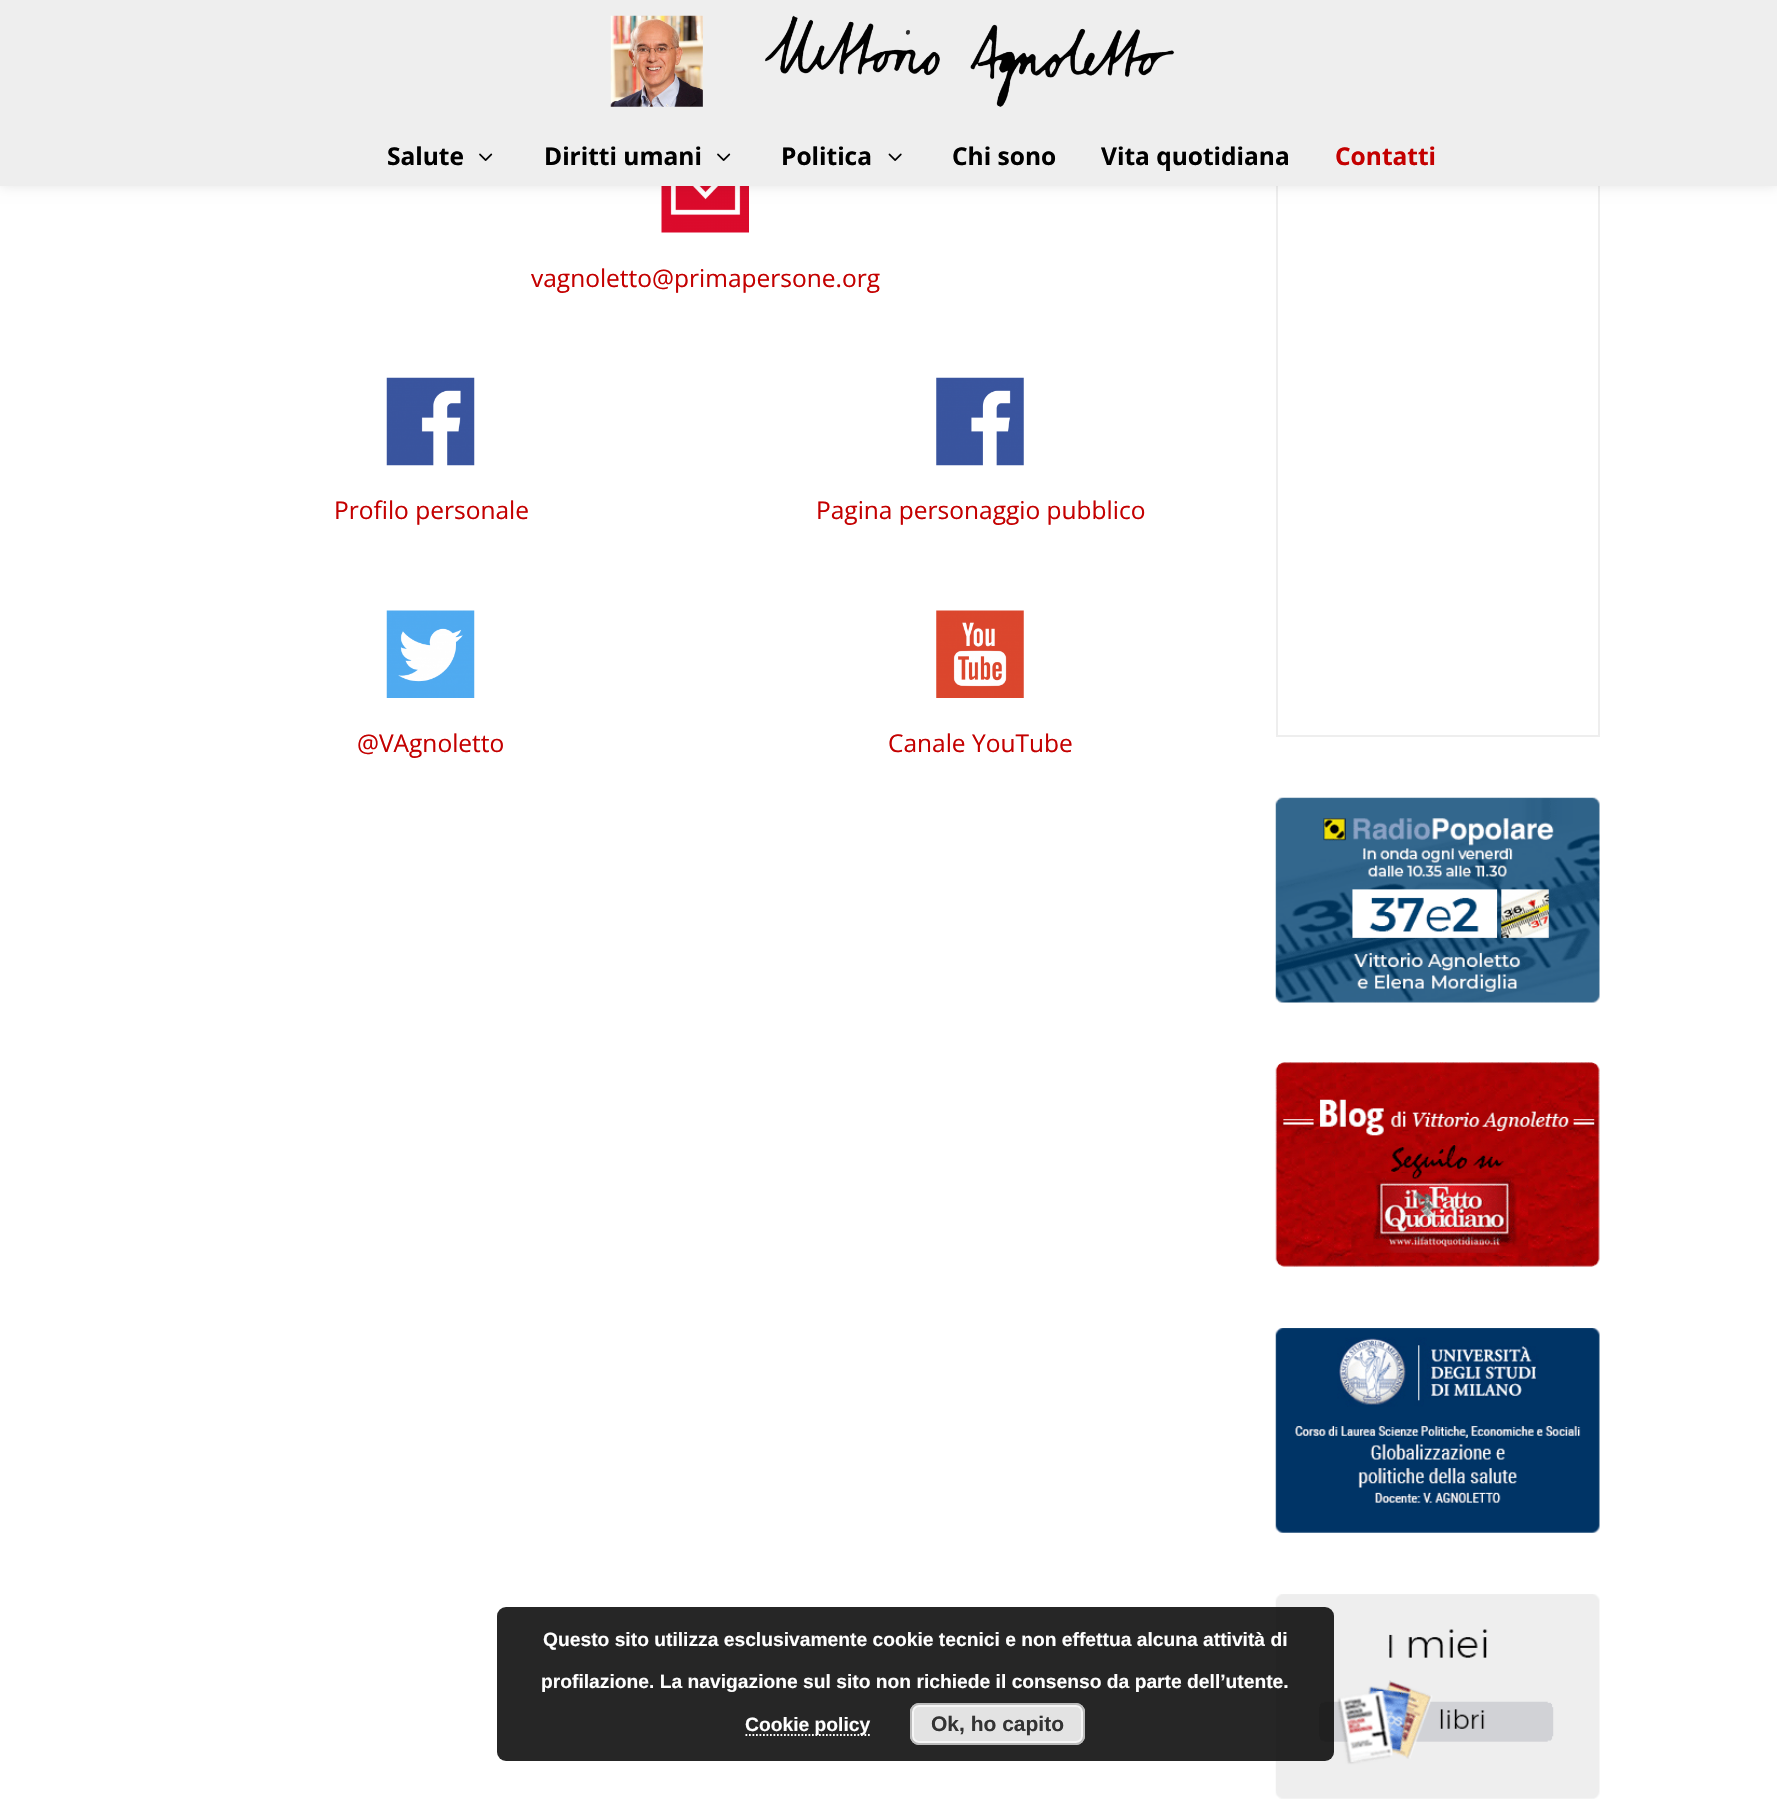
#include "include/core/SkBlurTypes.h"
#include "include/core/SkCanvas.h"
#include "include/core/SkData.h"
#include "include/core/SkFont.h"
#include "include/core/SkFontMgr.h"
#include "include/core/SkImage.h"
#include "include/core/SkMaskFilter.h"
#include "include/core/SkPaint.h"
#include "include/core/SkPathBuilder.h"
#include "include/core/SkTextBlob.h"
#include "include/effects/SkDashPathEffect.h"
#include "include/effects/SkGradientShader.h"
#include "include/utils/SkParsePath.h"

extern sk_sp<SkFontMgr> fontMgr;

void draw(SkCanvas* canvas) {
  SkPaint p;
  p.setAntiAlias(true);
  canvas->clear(SK_ColorWHITE);
  canvas->drawImageRect(SkImages::DeferredFromEncodedData(SkData::MakeFromFileName("images/4.png")), SkRect::MakeLTRB(661, 186, 749, 233), SkSamplingOptions());
  p.setStyle(SkPaint::kStroke_Style);
  p.setStrokeWidth(2);
  p.setColor(SkColorSetRGB(238, 238, 238));
  canvas->drawRect(SkRect::MakeLTRB(1277, 178, 1599, 736), p);
  p.setStyle(SkPaint::kFill_Style);
  p.setColor(SkColorSetARGB(26, 0, 0, 0));
  p.setMaskFilter(SkMaskFilter::MakeBlur(kNormal_SkBlurStyle, 6));
  canvas->drawRect(SkRect::MakeLTRB(0, 0, 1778, 186), p);
  p.setMaskFilter(nullptr);
  p.setColor(SkColorSetRGB(238, 238, 238));
  canvas->drawRect(SkRect::MakeLTRB(0, 0, 1777, 186), p);
  canvas->drawImageRect(SkImages::DeferredFromEncodedData(SkData::MakeFromFileName("images/1.png")), SkRect::MakeLTRB(610, 15, 1175, 107), SkSamplingOptions());
  canvas->drawImageRect(SkImages::DeferredFromEncodedData(SkData::MakeFromFileName("images/2.png")), SkRect::MakeLTRB(479, 153, 493, 161), SkSamplingOptions());
  canvas->drawImageRect(SkImages::DeferredFromEncodedData(SkData::MakeFromFileName("images/2.png")), SkRect::MakeLTRB(717, 153, 731, 161), SkSamplingOptions());
  canvas->drawImageRect(SkImages::DeferredFromEncodedData(SkData::MakeFromFileName("images/3.png")), SkRect::MakeLTRB(888, 153, 902, 161), SkSamplingOptions());
  canvas->drawImageRect(SkImages::DeferredFromEncodedData(SkData::MakeFromFileName("images/5.png")), SkRect::MakeLTRB(386, 377, 475, 466), SkSamplingOptions());
  canvas->drawImageRect(SkImages::DeferredFromEncodedData(SkData::MakeFromFileName("images/6.png")), SkRect::MakeLTRB(936, 377, 1024, 466), SkSamplingOptions());
  canvas->drawImageRect(SkImages::DeferredFromEncodedData(SkData::MakeFromFileName("images/7.png")), SkRect::MakeLTRB(386, 610, 475, 698), SkSamplingOptions());
  canvas->drawImageRect(SkImages::DeferredFromEncodedData(SkData::MakeFromFileName("images/8.png")), SkRect::MakeLTRB(936, 610, 1024, 698), SkSamplingOptions());
  canvas->drawImageRect(SkImages::DeferredFromEncodedData(SkData::MakeFromFileName("images/9.png")), SkRect::MakeLTRB(1275, 797, 1600, 1003), SkSamplingOptions());
  canvas->drawImageRect(SkImages::DeferredFromEncodedData(SkData::MakeFromFileName("images/10.png")), SkRect::MakeLTRB(1275, 1062, 1600, 1267), SkSamplingOptions());
  canvas->drawImageRect(SkImages::DeferredFromEncodedData(SkData::MakeFromFileName("images/11.png")), SkRect::MakeLTRB(1275, 1328, 1600, 1533), SkSamplingOptions());
  canvas->drawImageRect(SkImages::DeferredFromEncodedData(SkData::MakeFromFileName("images/12.png")), SkRect::MakeLTRB(1275, 1594, 1600, 1799), SkSamplingOptions());
  p.setColor(SkColorSetARGB(217, 0, 0, 0));
  canvas->drawRoundRect(SkRect::MakeLTRB(497, 1607, 1334, 1761), 9, 9, p);
  p.setStyle(SkPaint::kStroke_Style);
  p.setStrokeWidth(1.8f);
  p.setColor(SK_ColorWHITE);
  p.setPathEffect(SkDashPathEffect::Make({{1.75f, 1.75f}}, 0));
  canvas->drawPath(SkPathBuilder().moveTo(745.5f, 1735).lineTo(870, 1735).detach(), p);
  p.setPathEffect(nullptr);
  p.setStyle(SkPaint::kFill_Style);
  p.setColor(SkColorSetRGB(227, 227, 227));
  canvas->drawRoundRect(SkRect::MakeLTRB(910, 1703, 1085, 1745), 9, 9, p);
  p.setStyle(SkPaint::kStroke_Style);
  p.setStrokeWidth(2);
  p.setColor(SkColorSetRGB(246, 246, 246));
  canvas->drawRoundRect(SkRect::MakeLTRB(913, 1706, 1082, 1742), 6, 6, p);
  p.setColor(SkColorSetRGB(187, 187, 187));
  canvas->drawRoundRect(SkRect::MakeLTRB(911, 1704, 1084, 1744), 8, 8, p);
  SkFont font1(fontMgr->matchFamilyStyle("Open Sans", SkFontStyle::Bold()), 24.5f);
  font1.setSubpixel(true);
  p.setStyle(SkPaint::kFill_Style);
  p.setColor(SK_ColorBLACK);
  canvas->drawString("Salute", 387, 165, font1, p);
  canvas->drawString("Diritti umani", 544, 165, font1, p);
  canvas->drawString("Politica", 781, 165, font1, p);
  canvas->drawString("Chi sono", 952, 165, font1, p);
  canvas->drawString("Vita quotidiana", 1101, 165, font1, p);
  p.setColor(SkColorSetRGB(196, 0, 0));
  canvas->drawString("Contatti", 1335, 165, font1, p);
  SkFont font2(fontMgr->matchFamilyStyle("Open Sans", SkFontStyle::Normal()), 24.5f);
  font2.setSubpixel(true);
  canvas->drawString("vagnoletto@primapersone.org", 531, 287, font2, p);
  canvas->drawString("Profilo personale", 334, 519, font2, p);
  canvas->drawString("Pagina personaggio pubblico", 816, 519, font2, p);
  canvas->drawString("@VAgnoletto", 357, 752, font2, p);
  canvas->drawString("Canale YouTube", 888, 752, font2, p);
  SkFont font3(fontMgr->matchFamilyStyle("Liberation Sans", SkFontStyle::Bold()), 19.25f);
  font3.setSubpixel(true);
  p.setColor(SK_ColorWHITE);
  canvas->drawString("Questo sito utilizza esclusivamente cookie tecnici e non effettua alcuna attività di", 543, 1646, font3, p);
  canvas->drawString("profilazione. La navigazione sul sito non richiede il consenso da parte dell’utente.", 541, 1688, font3, p);
  canvas->drawString("Cookie policy", 745, 1731, font3, p);
  SkFont font4(fontMgr->matchFamilyStyle("Liberation Sans", SkFontStyle::Bold()), 21);
  font4.setSubpixel(true);
  p.setColor(SkColorSetRGB(51, 51, 51));
  canvas->drawString("Ok, ho capito", 931, 1731, font4, p);
}
